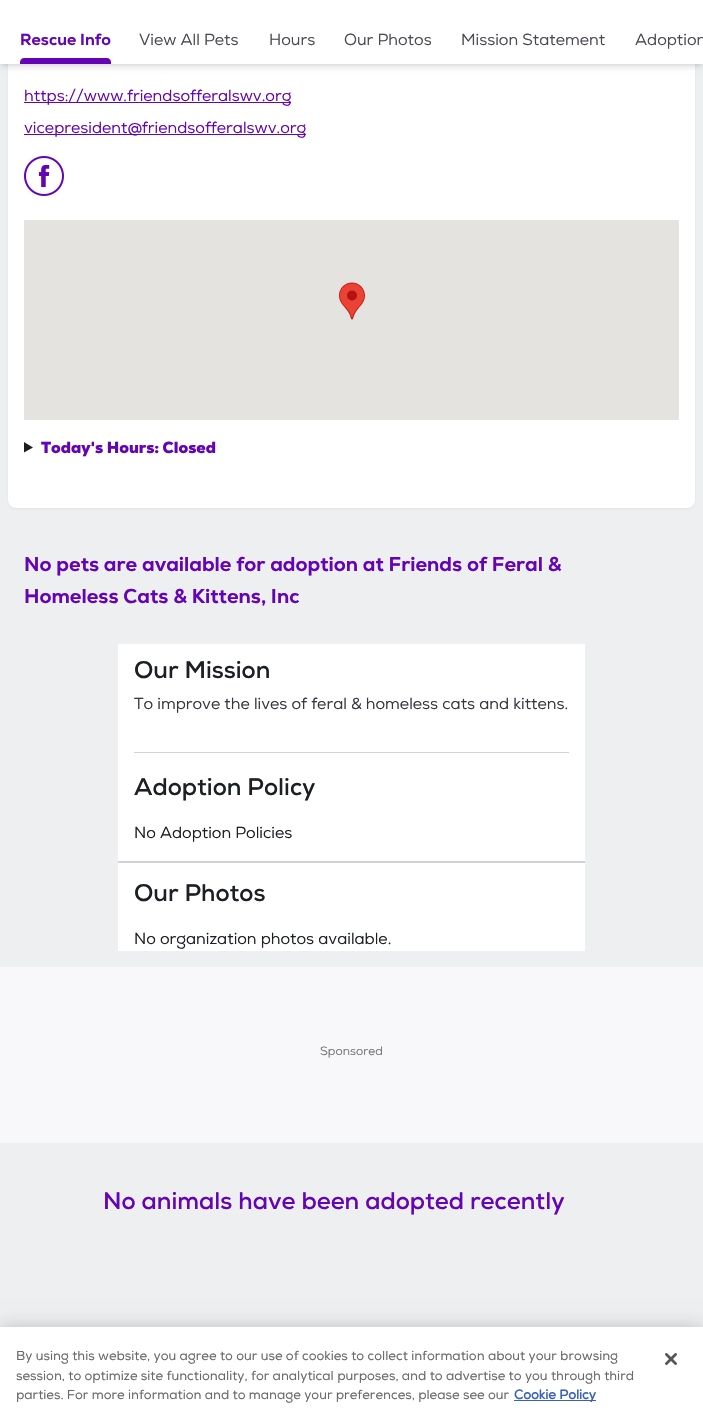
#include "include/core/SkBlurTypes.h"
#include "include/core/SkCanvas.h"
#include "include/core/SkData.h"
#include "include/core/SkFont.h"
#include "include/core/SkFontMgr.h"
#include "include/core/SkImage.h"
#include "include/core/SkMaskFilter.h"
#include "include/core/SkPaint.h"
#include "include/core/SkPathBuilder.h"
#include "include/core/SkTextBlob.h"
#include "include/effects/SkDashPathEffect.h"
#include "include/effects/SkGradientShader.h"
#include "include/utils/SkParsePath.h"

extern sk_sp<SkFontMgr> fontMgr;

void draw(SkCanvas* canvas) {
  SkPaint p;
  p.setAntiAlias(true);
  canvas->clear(SkColorSetRGB(238, 239, 241));
  p.setColor(SkColorSetARGB(13, 0, 0, 0));
  p.setMaskFilter(SkMaskFilter::MakeBlur(kNormal_SkBlurStyle, 1));
  canvas->drawRoundRect(SkRect::MakeLTRB(8, -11, 695, 509), 8, 8, p);
  p.setMaskFilter(nullptr);
  p.setColor(SK_ColorWHITE);
  canvas->drawRoundRect(SkRect::MakeLTRB(8, -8, 695, 508), 8, 8, p);
  p.setColor(SkColorSetARGB(26, 0, 0, 0));
  p.setMaskFilter(SkMaskFilter::MakeBlur(kNormal_SkBlurStyle, 2));
  canvas->drawRect(SkRect::MakeLTRB(2, 4, 701, 64), p);
  p.setMaskFilter(nullptr);
  p.setMaskFilter(SkMaskFilter::MakeBlur(kNormal_SkBlurStyle, 3));
  canvas->drawRect(SkRect::MakeLTRB(1, 5, 702, 67), p);
  p.setMaskFilter(nullptr);
  p.setColor(SK_ColorWHITE);
  canvas->drawRect(SkRect::MakeLTRB(0, 0, 703, 64), p);
  p.setColor(SkColorSetRGB(101, 4, 181));
  canvas->drawPath(SkPathBuilder().moveTo(24, 58).lineTo(107, 58).cubicTo(109, 58, 111, 60, 111, 62).lineTo(111, 64).lineTo(20, 64).lineTo(20, 62).cubicTo(20, 60, 22, 58, 24, 58).close().detach(), p);
  canvas->drawRect(SkRect::MakeLTRB(24, 102, 291, 103), p);
  canvas->drawRect(SkRect::MakeLTRB(24, 134, 306, 135), p);
  canvas->drawImageRect(SkImages::DeferredFromEncodedData(SkData::MakeFromFileName("images/1.png")), SkRect::MakeLTRB(24, 156, 64, 196), SkSamplingOptions());
  p.setColor(SkColorSetRGB(229, 227, 223));
  canvas->drawRect(SkRect::MakeLTRB(24, 220, 679, 420), p);
  canvas->drawImageRect(SkImages::DeferredFromEncodedData(SkData::MakeFromFileName("images/2.png")), SkRect::MakeLTRB(339, 282, 365, 320), SkSamplingOptions());
  p.setColor(SkColorSetRGB(28, 32, 36));
  canvas->drawPath(SkPathBuilder().moveTo(24, 442).lineTo(33, 447.5f).lineTo(24, 452.5f).close().detach(), p);
  p.setColor(SK_ColorWHITE);
  canvas->drawRect(SkRect::MakeLTRB(118, 644, 585, 951), p);
  p.setColor(SkColorSetRGB(210, 209, 211));
  canvas->drawRect(SkRect::MakeLTRB(134, 752, 569, 753), p);
  canvas->drawRect(SkRect::MakeLTRB(118, 861, 585, 863), p);
  p.setColor(SkColorSetRGB(248, 247, 250));
  canvas->drawRect(SkRect::MakeLTRB(0, 967, 703, 1143), p);
  p.setColor(SkColorSetARGB(51, 0, 0, 0));
  p.setMaskFilter(SkMaskFilter::MakeBlur(kNormal_SkBlurStyle, 9));
  canvas->drawRect(SkRect::MakeLTRB(0, 1327, 703, 1416), p);
  p.setMaskFilter(nullptr);
  p.setColor(SK_ColorWHITE);
  canvas->drawRect(SkRect::MakeLTRB(0, 1327, 703, 1416), p);
  p.setColor(SkColorSetRGB(56, 96, 190));
  canvas->drawRect(SkRect::MakeLTRB(514, 1400, 596, 1401), p);
  canvas->drawImageRect(SkImages::DeferredFromEncodedData(SkData::MakeFromFileName("images/3.png")), SkRect::MakeLTRB(665, 1353, 677, 1365), SkSamplingOptions());
  SkFont font1(fontMgr->matchFamilyStyle("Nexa", SkFontStyle(800, SkFontStyle::kNormal_Width, SkFontStyle::kUpright_Slant)), 16);
  font1.setSubpixel(true);
  p.setColor(SkColorSetRGB(101, 4, 181));
  canvas->drawString("Rescue Info", 20, 45, font1, p);
  SkFont font2(fontMgr->matchFamilyStyle("Nexa", SkFontStyle::Normal()), 16);
  font2.setSubpixel(true);
  p.setColor(SkColorSetRGB(77, 71, 81));
  canvas->drawString("View All Pets", 139, 45, font2, p);
  canvas->drawString("Hours", 269, 45, font2, p);
  canvas->drawString("Our Photos", 344, 45, font2, p);
  canvas->drawString("Mission Statement", 461, 45, font2, p);
  canvas->drawString("Adoption", 635, 45, font2, p);
  p.setColor(SkColorSetRGB(101, 4, 181));
  canvas->drawString("https://www.friendsofferalswv.org", 24, 101, font2, p);
  canvas->drawString("vicepresident@friendsofferalswv.org", 24, 133, font2, p);
  SkFont font3(fontMgr->matchFamilyStyle("Nexa", SkFontStyle(900, SkFontStyle::kNormal_Width, SkFontStyle::kUpright_Slant)), 16);
  font3.setSubpixel(true);
  canvas->drawString("Today's Hours: Closed", 41, 453, font3, p);
  SkFont font4(fontMgr->matchFamilyStyle("Nexa", SkFontStyle(800, SkFontStyle::kNormal_Width, SkFontStyle::kUpright_Slant)), 20);
  font4.setSubpixel(true);
  canvas->drawString("No pets are available for adoption at Friends of Feral &", 24, 571, font4, p);
  canvas->drawString("Homeless Cats & Kittens, Inc", 24, 603, font4, p);
  SkFont font5(fontMgr->matchFamilyStyle("Nexa", SkFontStyle::Bold()), 24);
  font5.setSubpixel(true);
  p.setColor(SkColorSetRGB(28, 32, 36));
  canvas->drawString("Our Mission", 134, 678, font5, p);
  p.setColor(SkColorSetRGB(51, 55, 62));
  canvas->drawString("To improve the lives of feral & homeless cats and kittens.", 134, 709, font2, p);
  p.setColor(SkColorSetRGB(28, 32, 36));
  canvas->drawString("Adoption Policy", 134, 795, font5, p);
  canvas->drawString("No Adoption Policies", 134, 838, font2, p);
  canvas->drawString("Our Photos", 134, 901, font5, p);
  canvas->drawString("No organization photos available.", 134, 944, font2, p);
  SkFont font6(fontMgr->matchFamilyStyle("Nexa", SkFontStyle::Normal()), 12);
  font6.setSubpixel(true);
  p.setColor(SkColorSetRGB(114, 117, 121));
  canvas->drawString("Sponsored", 320, 1055, font6, p);
  p.setColor(SkColorSetRGB(101, 4, 181));
  canvas->drawString("No animals have been adopted recently", 103, 1209, font5, p);
  SkFont font7(fontMgr->matchFamilyStyle("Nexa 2", SkFontStyle::Normal()), 13);
  font7.setSubpixel(true);
  p.setColor(SkColorSetRGB(105, 105, 105));
  canvas->drawString("By using this website, you agree to our use of cookies to collect information about your browsing", 16, 1360, font7, p);
  canvas->drawString("session, to optimize site functionality, for analytical purposes, and to advertise to you through third", 16, 1380, font7, p);
  canvas->drawString("parties. For more information and to manage your preferences, please see our", 16, 1399, font7, p);
  SkFont font8(fontMgr->matchFamilyStyle("Nexa 2", SkFontStyle::Bold()), 13);
  font8.setSubpixel(true);
  p.setColor(SkColorSetRGB(56, 96, 190));
  canvas->drawString("Cookie Policy", 514, 1399, font8, p);
}
